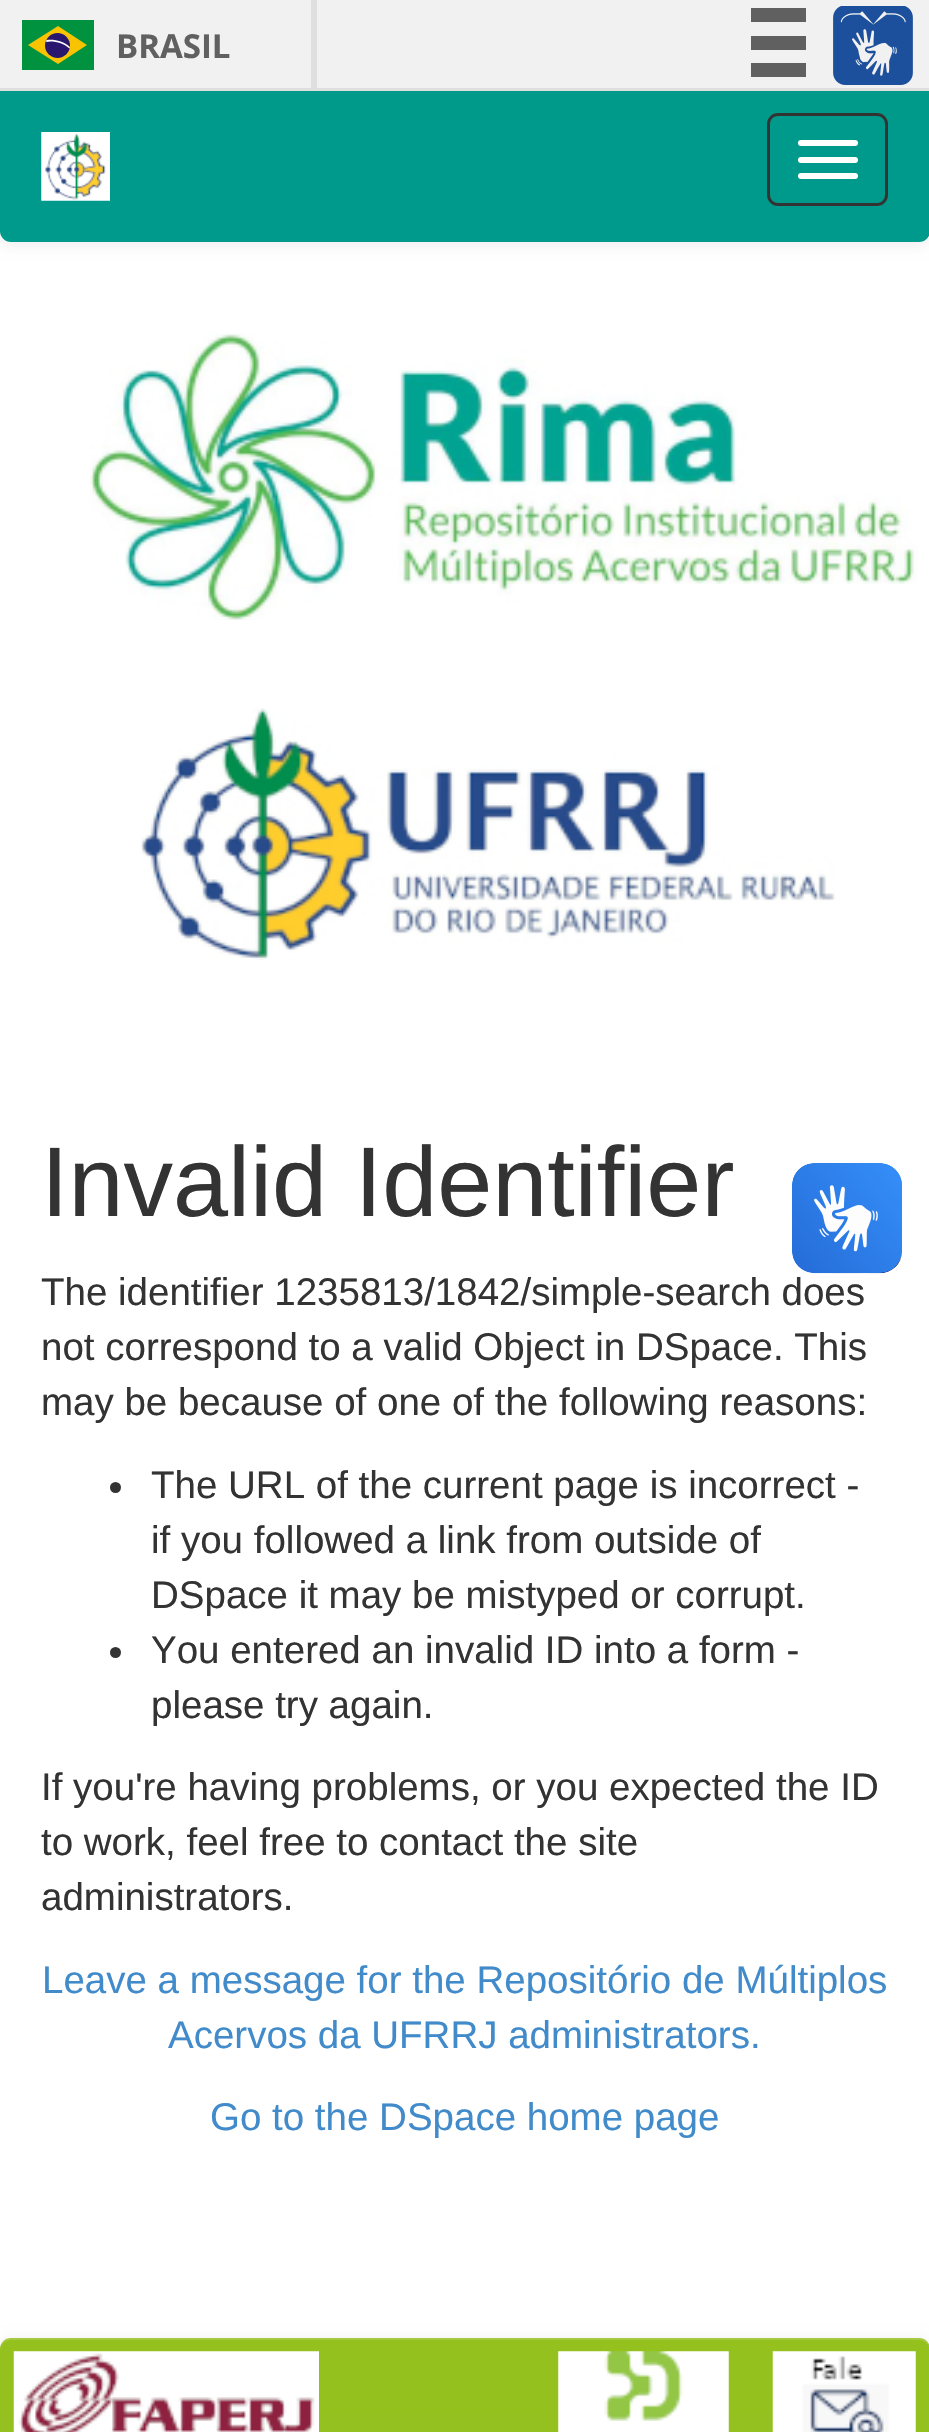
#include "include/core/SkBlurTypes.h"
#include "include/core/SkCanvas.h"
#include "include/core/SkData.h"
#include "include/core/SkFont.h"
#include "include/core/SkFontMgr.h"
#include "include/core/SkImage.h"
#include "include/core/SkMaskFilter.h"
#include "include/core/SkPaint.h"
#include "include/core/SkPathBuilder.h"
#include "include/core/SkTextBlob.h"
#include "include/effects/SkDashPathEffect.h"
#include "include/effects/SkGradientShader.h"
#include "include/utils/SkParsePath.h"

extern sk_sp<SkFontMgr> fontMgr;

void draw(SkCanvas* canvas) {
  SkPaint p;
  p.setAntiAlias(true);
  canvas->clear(SK_ColorWHITE);
  p.setColor(SkColorSetARGB(18, 0, 0, 0));
  p.setMaskFilter(SkMaskFilter::MakeBlur(kNormal_SkBlurStyle, 7));
  canvas->drawRoundRect(SkRect::MakeLTRB(0, 3, 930, 245), 11, 11, p);
  p.setMaskFilter(nullptr);
  {
    const SkColor colors[] = {SkColorSetRGB(0, 154, 139), SkColorSetRGB(0, 154, 140)};
    const float stops[] = {0, 1};
    const SkPoint ends[] = {{465, 0}, {465, 242}};
    p.setShader(SkGradientShader::MakeLinear(ends, colors, stops, 2, SkTileMode::kClamp));
    p.setAlpha(255);
  }
  canvas->drawRoundRect(SkRect::MakeLTRB(0, 0, 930, 242), 11, 11, p);
  p.setShader(nullptr);
  p.setColor(SkColorSetRGB(241, 241, 241));
  canvas->drawRect(SkRect::MakeLTRB(0, 0, 929, 88), p);
  p.setColor(SkColorSetRGB(223, 223, 223));
  canvas->drawRect(SkRect::MakeLTRB(0, 88, 929, 91), p);
  canvas->drawRect(SkRect::MakeLTRB(311, 0, 317, 88), p);
  p.setColor(SkColorSetRGB(0, 146, 63));
  canvas->drawRect(SkRect::MakeLTRB(22, 20, 94, 70), p);
  p.setColor(SkColorSetRGB(248, 195, 0));
  canvas->drawPath(SkPathBuilder().moveTo(58, 26).lineTo(28, 45).lineTo(58, 64).lineTo(87, 45).close().detach(), p);
  p.setColor(SkColorSetRGB(40, 22, 111));
  canvas->drawCircle(57.5f, 45.5f, 12.5f, p);
  p.setColor(SK_ColorWHITE);
  canvas->drawPath(SkPathBuilder().moveTo(50, 41.5f).cubicTo(57.5f, 41.5f, 64.5f, 44, 69.5f, 48.5f).lineTo(70, 47).cubicTo(63.5f, 41.5f, 55, 39, 46.5f, 40).lineTo(46, 42).lineTo(50.5f, 41.5f).close().detach(), p);
  p.setColor(SkColorSetRGB(96, 96, 96));
  canvas->drawRect(SkRect::MakeLTRB(751, 8, 806, 22), p);
  canvas->drawRect(SkRect::MakeLTRB(751, 36, 806, 50), p);
  canvas->drawRect(SkRect::MakeLTRB(751, 63, 806, 77), p);
  canvas->drawImageRect(SkImages::DeferredFromEncodedData(SkData::MakeFromFileName("images/1.png")), SkRect::MakeLTRB(833, 6, 913, 85), SkSamplingOptions());
  canvas->drawImageRect(SkImages::DeferredFromEncodedData(SkData::MakeFromFileName("images/2.png")), SkRect::MakeLTRB(41, 132, 110, 201), SkSamplingOptions());
  p.setStyle(SkPaint::kStroke_Style);
  p.setStrokeWidth(3);
  p.setColor(SkColorSetRGB(51, 51, 51));
  canvas->drawRoundRect(SkRect::MakeLTRB(768.5f, 114.5f, 886.5f, 204.5f), 9.5f, 9.5f, p);
  p.setStyle(SkPaint::kFill_Style);
  p.setColor(SK_ColorWHITE);
  canvas->drawRoundRect(SkRect::MakeLTRB(798, 140, 858, 146), 3, 3, p);
  canvas->drawRoundRect(SkRect::MakeLTRB(798, 157, 858, 163), 3, 3, p);
  canvas->drawRoundRect(SkRect::MakeLTRB(798, 173, 858, 179), 3, 3, p);
  canvas->drawImageRect(SkImages::DeferredFromEncodedData(SkData::MakeFromFileName("images/3.png")), SkRect::MakeLTRB(90, 333, 918, 620), SkSamplingOptions());
  canvas->drawImageRect(SkImages::DeferredFromEncodedData(SkData::MakeFromFileName("images/4.png")), SkRect::MakeLTRB(140, 708, 836, 960), SkSamplingOptions());
  p.setColor(SkColorSetRGB(51, 51, 51));
  canvas->drawCircle(115.5f, 1487.5f, 5.5f, p);
  canvas->drawCircle(115.5f, 1652.5f, 5.5f, p);
  canvas->drawImageRect(SkImages::DeferredFromEncodedData(SkData::MakeFromFileName("images/5.png")), SkRect::MakeLTRB(792, 1163, 902, 1274), SkSamplingOptions());
  canvas->drawImageRect(SkImages::DeferredFromEncodedData(SkData::MakeFromFileName("images/6.png")), SkRect::MakeLTRB(792, 1163, 902, 1273), SkSamplingOptions());
  p.setColor(SkColorSetARGB(18, 0, 0, 0));
  p.setMaskFilter(SkMaskFilter::MakeBlur(kNormal_SkBlurStyle, 7));
  canvas->drawRoundRect(SkRect::MakeLTRB(0, 2340, 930, 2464), 11, 11, p);
  p.setMaskFilter(nullptr);
  {
    const SkColor colors[] = {SkColorSetRGB(149, 193, 31), SkColorSetRGB(149, 193, 32)};
    const float stops[] = {0, 1};
    const SkPoint ends[] = {{465, 2338}, {465, 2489}};
    p.setShader(SkGradientShader::MakeLinear(ends, colors, stops, 2, SkTileMode::kClamp));
    p.setAlpha(255);
  }
  canvas->drawRoundRect(SkRect::MakeLTRB(0, 2338, 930, 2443), 11, 11, p);
  p.setShader(nullptr);
  p.setColor(SkColorSetARGB(38, 255, 255, 255));
  canvas->drawPath(SkPathBuilder().moveTo(11, 2340).lineTo(918, 2340).cubicTo(925, 2340, 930, 2345, 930, 2351).cubicTo(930, 2344, 926, 2338, 919, 2338).lineTo(11, 2338).cubicTo(4, 2338, 0, 2344, 0, 2351).cubicTo(0, 2345, 5, 2340, 11, 2340).close().detach(), p);
  canvas->drawImageRect(SkImages::DeferredFromEncodedData(SkData::MakeFromFileName("images/7.png")), SkRect::MakeLTRB(13, 2351, 319, 2432), SkSamplingOptions());
  canvas->drawImageRect(SkImages::DeferredFromEncodedData(SkData::MakeFromFileName("images/8.png")), SkRect::MakeLTRB(558, 2351, 729, 2432), SkSamplingOptions());
  canvas->drawImageRect(SkImages::DeferredFromEncodedData(SkData::MakeFromFileName("images/9.png")), SkRect::MakeLTRB(772, 2351, 916, 2432), SkSamplingOptions());
  SkFont font1(fontMgr->matchFamilyStyle("Open Sans", SkFontStyle::Bold()), 33);
  font1.setSubpixel(true);
  p.setColor(SkColorSetRGB(96, 96, 96));
  canvas->drawString("BRASIL", 116, 58, font1, p);
  SkFont font2(fontMgr->matchFamilyStyle("Liberation Sans", SkFontStyle::Normal()), 99);
  font2.setSubpixel(true);
  p.setColor(SkColorSetRGB(51, 51, 51));
  canvas->drawString("Invalid Identifier", 41, 1216, font2, p);
  SkFont font3(fontMgr->matchFamilyStyle("Liberation Sans", SkFontStyle::Normal()), 38.5f);
  font3.setSubpixel(true);
  canvas->drawString("The identifier 1235813/1842/simple-search does", 41, 1305, font3, p);
  canvas->drawString("not correspond to a valid Object in DSpace. This", 41, 1360, font3, p);
  canvas->drawString("may be because of one of the following reasons:", 41, 1415, font3, p);
  canvas->drawString("The URL of the current page is incorrect -", 151, 1498, font3, p);
  canvas->drawString("if you followed a link from outside of", 151, 1553, font3, p);
  canvas->drawString("DSpace it may be mistyped or corrupt.", 151, 1608, font3, p);
  canvas->drawString("You entered an invalid ID into a form -", 151, 1663, font3, p);
  canvas->drawString("please try again.", 151, 1718, font3, p);
  canvas->drawString("If you're having problems, or you expected the ID", 41, 1800, font3, p);
  canvas->drawString("to work, feel free to contact the site", 41, 1855, font3, p);
  canvas->drawString("administrators.", 41, 1910, font3, p);
  p.setColor(SkColorSetRGB(66, 139, 202));
  canvas->drawString("Leave a message for the Repositório de Múltiplos", 42, 1993, font3, p);
  canvas->drawString("Acervos da UFRRJ administrators.", 168, 2048, font3, p);
  canvas->drawString("Go to the DSpace home page", 210, 2130, font3, p);
}
